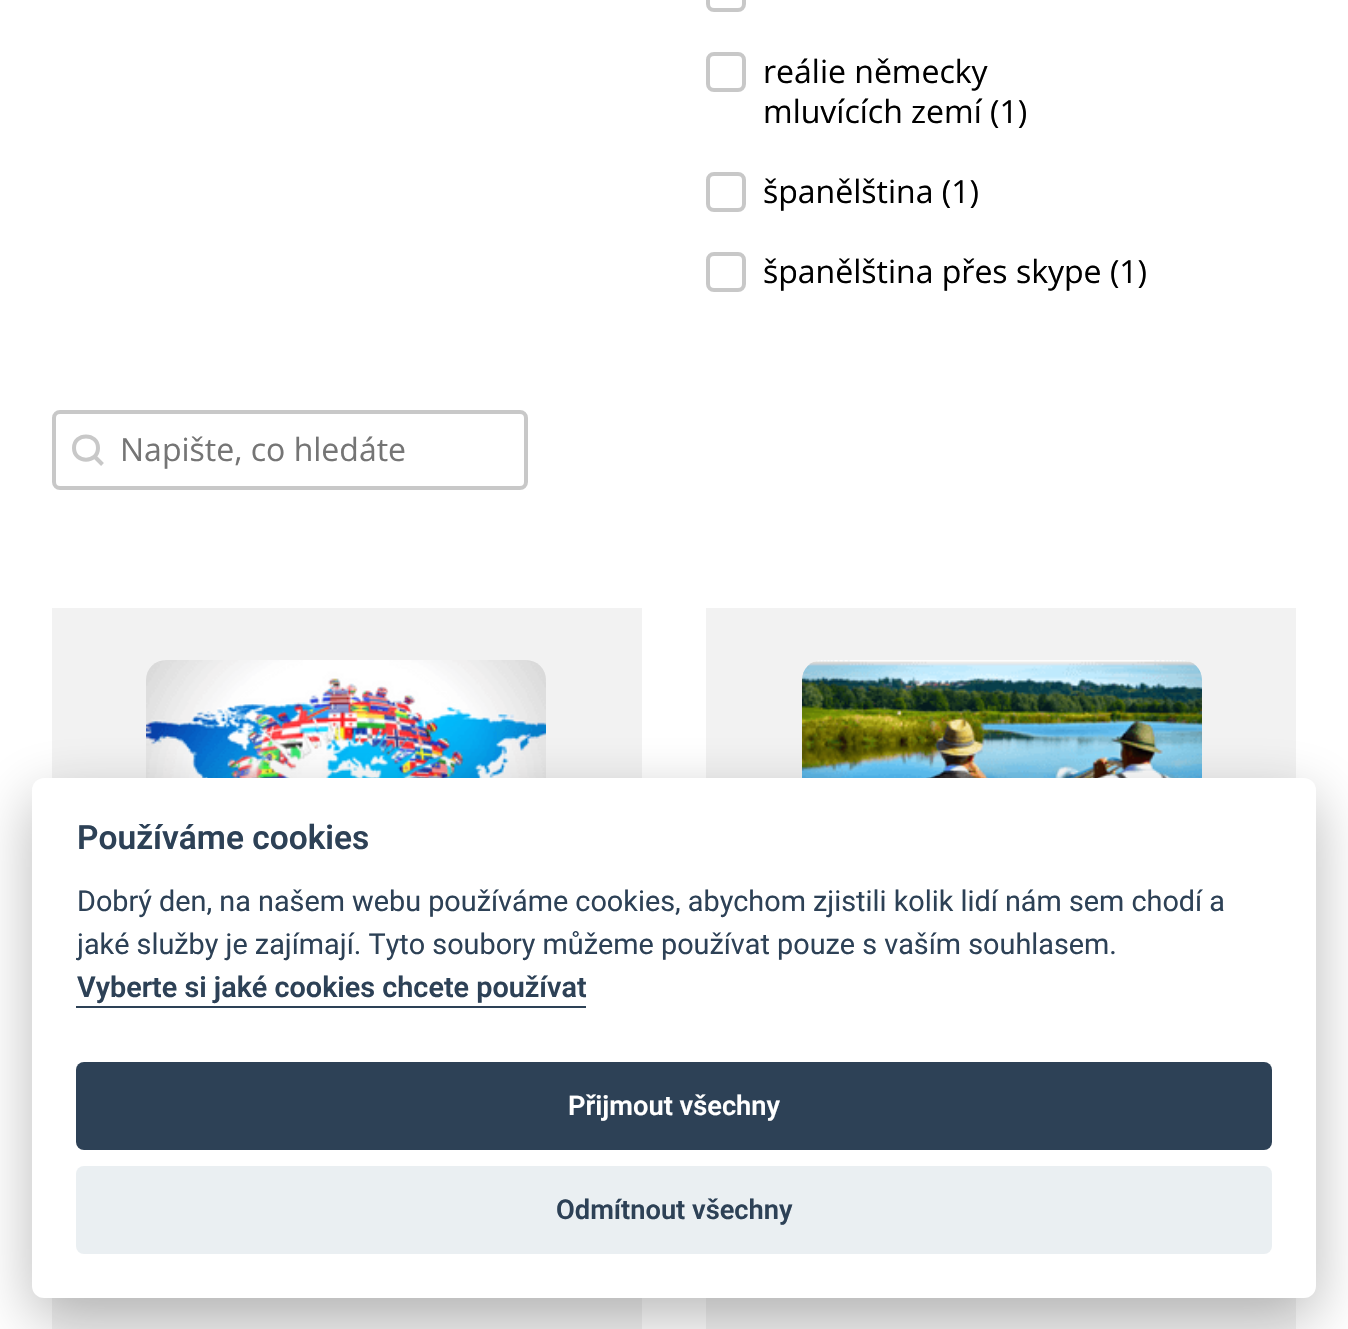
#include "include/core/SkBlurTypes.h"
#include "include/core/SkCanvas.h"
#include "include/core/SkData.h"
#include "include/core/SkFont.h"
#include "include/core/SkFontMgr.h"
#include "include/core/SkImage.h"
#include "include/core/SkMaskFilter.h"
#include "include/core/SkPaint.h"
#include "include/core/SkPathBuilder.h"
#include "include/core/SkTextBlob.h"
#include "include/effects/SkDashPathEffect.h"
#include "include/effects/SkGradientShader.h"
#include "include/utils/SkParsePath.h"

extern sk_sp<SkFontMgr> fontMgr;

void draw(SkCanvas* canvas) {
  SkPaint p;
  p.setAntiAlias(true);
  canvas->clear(SK_ColorWHITE);
  p.setStyle(SkPaint::kStroke_Style);
  p.setStrokeWidth(4);
  p.setColor(SkColorSetRGB(200, 200, 200));
  canvas->drawRoundRect(SkRect::MakeLTRB(708, -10, 744, 10), 6, 6, p);
  canvas->drawRoundRect(SkRect::MakeLTRB(708, 54, 744, 90), 6, 6, p);
  canvas->drawRoundRect(SkRect::MakeLTRB(708, 174, 744, 210), 6, 6, p);
  canvas->drawRoundRect(SkRect::MakeLTRB(708, 254, 744, 290), 6, 6, p);
  canvas->drawRoundRect(SkRect::MakeLTRB(54, 412, 526, 488), 6, 6, p);
  canvas->drawPath(SkPathBuilder().moveTo(95.5f, 457.5f).lineTo(102.5f, 464.5f).close().moveTo(74, 448).cubicTo(74, 432.5f, 98, 432.5f, 98, 448).cubicTo(98, 463.5f, 74, 463.5f, 74, 448).close().detach(), p);
  p.setStyle(SkPaint::kFill_Style);
  p.setColor(SkColorSetRGB(242, 242, 242));
  canvas->drawRect(SkRect::MakeLTRB(52, 608, 642, 1329), p);
  canvas->drawImageRect(SkImages::DeferredFromEncodedData(SkData::MakeFromFileName("images/1.png")), SkRect::MakeLTRB(146, 660, 546, 778), SkSamplingOptions());
  canvas->drawRect(SkRect::MakeLTRB(706, 608, 1296, 1329), p);
  canvas->drawImageRect(SkImages::DeferredFromEncodedData(SkData::MakeFromFileName("images/2.png")), SkRect::MakeLTRB(802, 660, 1202, 778), SkSamplingOptions());
  p.setColor(SkColorSetARGB(71, 2, 2, 3));
  p.setMaskFilter(SkMaskFilter::MakeBlur(kNormal_SkBlurStyle, 30));
  canvas->drawRoundRect(SkRect::MakeLTRB(32, 798, 1316, 1318), 12, 12, p);
  p.setMaskFilter(nullptr);
  p.setColor(SK_ColorWHITE);
  canvas->drawRoundRect(SkRect::MakeLTRB(32, 778, 1316, 1298), 12, 12, p);
  p.setColor(SkColorSetRGB(45, 65, 86));
  canvas->drawRect(SkRect::MakeLTRB(76, 1006, 586, 1008), p);
  canvas->drawRoundRect(SkRect::MakeLTRB(76, 1062, 1272, 1150), 8, 8, p);
  p.setColor(SkColorSetRGB(234, 239, 242));
  canvas->drawRoundRect(SkRect::MakeLTRB(76, 1166, 1272, 1254), 8, 8, p);
  SkFont font1(fontMgr->matchFamilyStyle("Open Sans", SkFontStyle::Normal()), 32);
  font1.setSubpixel(true);
  p.setColor(SK_ColorBLACK);
  canvas->drawString("reálie německy", 763, 83, font1, p);
  canvas->drawString("mluvících zemí (1)", 763, 123, font1, p);
  canvas->drawString("španělština (1)", 763, 203, font1, p);
  canvas->drawString("španělština přes skype (1)", 763, 283, font1, p);
  p.setColor(SkColorSetRGB(117, 117, 117));
  canvas->drawString("Napište, co hledáte", 120, 461, font1, p);
  SkFont font2(fontMgr->matchFamilyStyle("Roboto", SkFontStyle(600, SkFontStyle::kNormal_Width, SkFontStyle::kUpright_Slant)), 33.5f);
  font2.setSubpixel(true);
  p.setColor(SkColorSetRGB(45, 65, 86));
  canvas->drawString("Používáme cookies", 77, 849, font2, p);
  SkFont font3(fontMgr->matchFamilyStyle("Roboto", SkFontStyle::Normal()), 28.8f);
  font3.setSubpixel(true);
  canvas->drawString("Dobrý den, na našem webu používáme cookies, abychom zjistili kolik lidí nám sem chodí a", 77, 911, font3, p);
  canvas->drawString("jaké služby je zajímají. Tyto soubory můžeme používat pouze s vaším souhlasem.", 77, 954, font3, p);
  SkFont font4(fontMgr->matchFamilyStyle("Roboto", SkFontStyle(600, SkFontStyle::kNormal_Width, SkFontStyle::kUpright_Slant)), 28.8f);
  font4.setSubpixel(true);
  canvas->drawString("Vyberte si jaké cookies chcete používat", 77, 997, font4, p);
  SkFont font5(fontMgr->matchFamilyStyle("Roboto", SkFontStyle(600, SkFontStyle::kNormal_Width, SkFontStyle::kUpright_Slant)), 27.25f);
  font5.setSubpixel(true);
  p.setColor(SK_ColorWHITE);
  canvas->drawString("Přijmout všechny", 568, 1115, font5, p);
  p.setColor(SkColorSetRGB(45, 65, 86));
  canvas->drawString("Odmítnout všechny", 556, 1219, font5, p);
}
